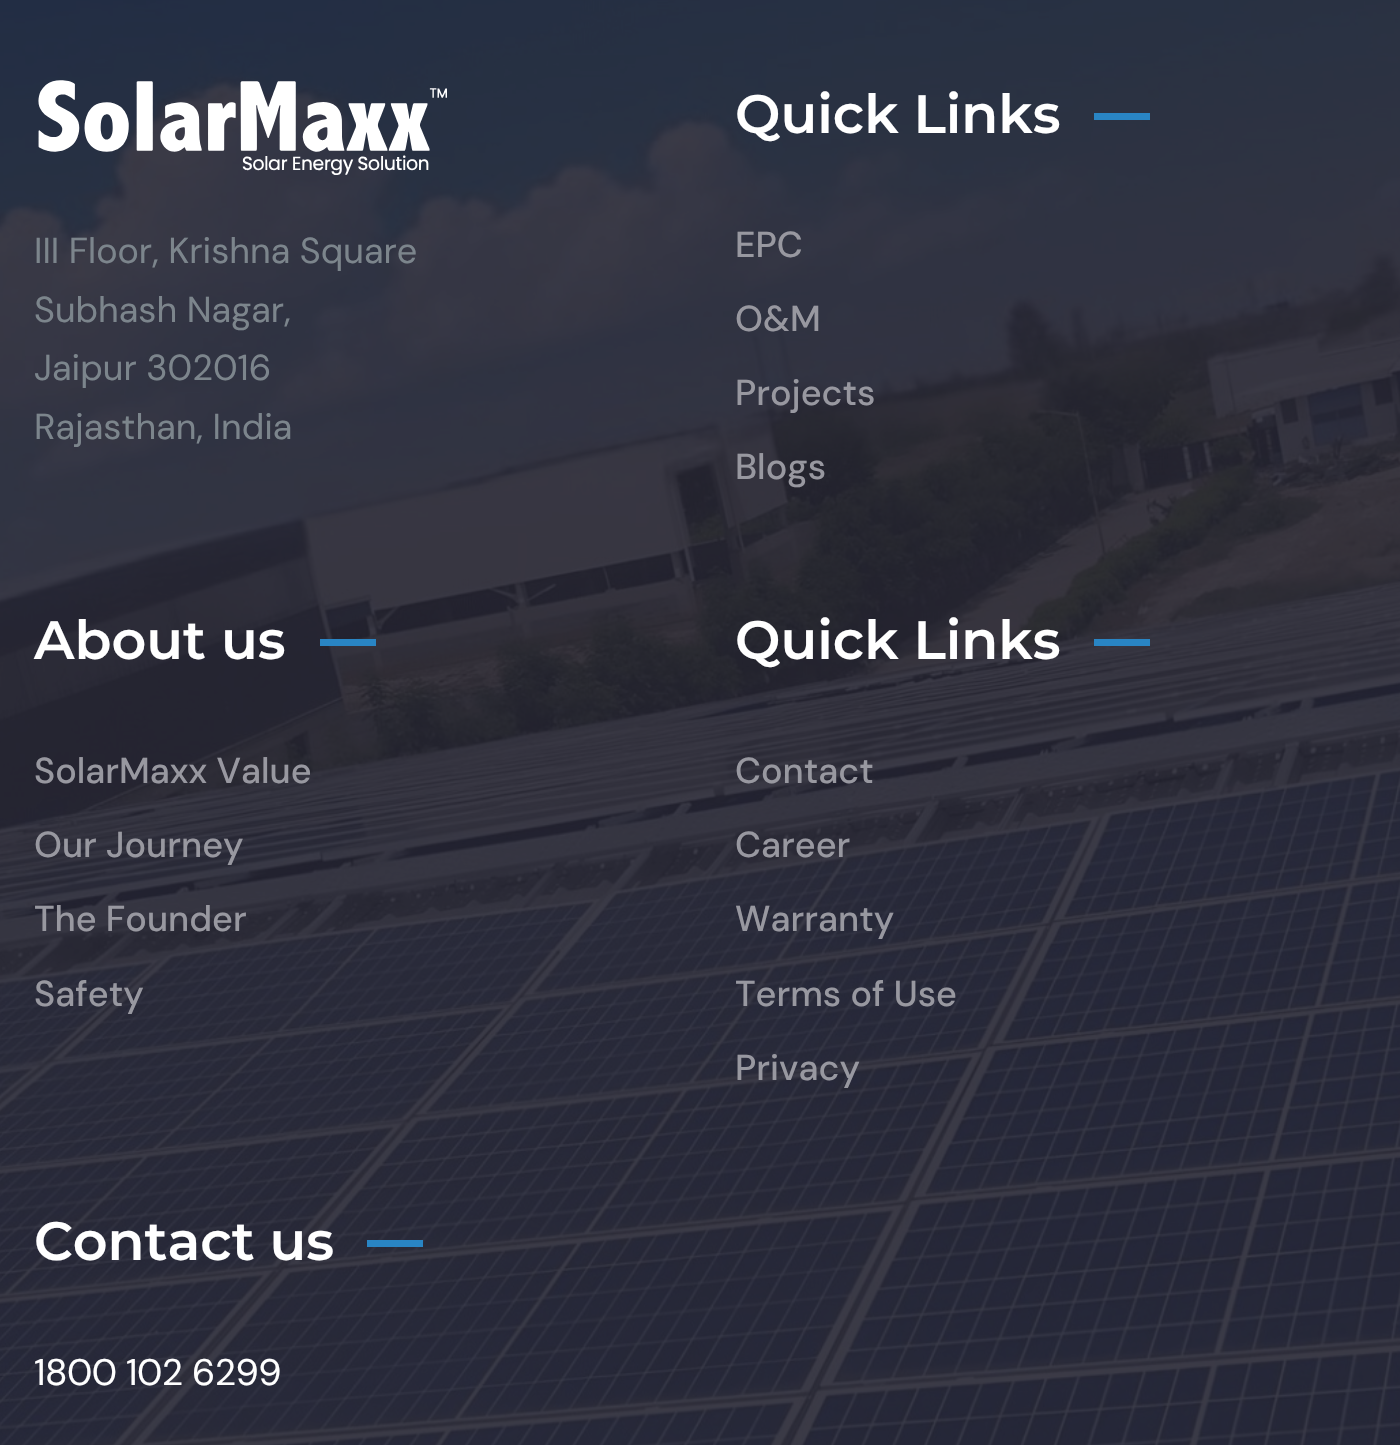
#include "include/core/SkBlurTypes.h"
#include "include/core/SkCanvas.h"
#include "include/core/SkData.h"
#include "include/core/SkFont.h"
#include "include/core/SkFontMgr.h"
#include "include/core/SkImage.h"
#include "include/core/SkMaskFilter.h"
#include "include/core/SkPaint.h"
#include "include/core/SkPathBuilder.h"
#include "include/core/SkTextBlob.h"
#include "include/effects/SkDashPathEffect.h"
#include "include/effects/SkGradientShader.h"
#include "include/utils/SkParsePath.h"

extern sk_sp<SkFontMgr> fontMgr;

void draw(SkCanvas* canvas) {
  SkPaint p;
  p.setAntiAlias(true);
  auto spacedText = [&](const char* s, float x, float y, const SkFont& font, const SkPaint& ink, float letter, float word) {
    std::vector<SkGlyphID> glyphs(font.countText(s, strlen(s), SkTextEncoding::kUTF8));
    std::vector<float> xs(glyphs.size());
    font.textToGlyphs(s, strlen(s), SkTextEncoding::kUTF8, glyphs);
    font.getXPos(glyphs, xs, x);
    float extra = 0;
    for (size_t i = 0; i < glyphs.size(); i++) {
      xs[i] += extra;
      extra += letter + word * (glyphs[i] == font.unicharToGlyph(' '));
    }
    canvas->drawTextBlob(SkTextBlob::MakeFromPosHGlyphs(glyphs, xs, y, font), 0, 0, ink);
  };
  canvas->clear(SkColorSetRGB(36, 35, 49));
  canvas->drawImageRect(SkImages::DeferredFromEncodedData(SkData::MakeFromFileName("images/1.png")), SkRect::MakeLTRB(0, 0, 1400, 1445), SkSamplingOptions());
  canvas->drawImageRect(SkImages::DeferredFromEncodedData(SkData::MakeFromFileName("images/2.png")), SkRect::MakeLTRB(38, 80, 447, 175), SkSamplingOptions());
  p.setColor(SkColorSetRGB(41, 133, 196));
  canvas->drawRect(SkRect::MakeLTRB(1094, 113, 1150, 120), p);
  canvas->drawRect(SkRect::MakeLTRB(320, 639, 376, 646), p);
  canvas->drawRect(SkRect::MakeLTRB(1094, 639, 1150, 646), p);
  canvas->drawRect(SkRect::MakeLTRB(367, 1240, 423, 1247), p);
  SkFont font1(fontMgr->matchFamilyStyle("DM Sans", SkFontStyle::Normal()), 36);
  font1.setSubpixel(true);
  p.setColor(SkColorSetRGB(124, 133, 140));
  canvas->drawString("III Floor, Krishna Square", 34, 263, font1, p);
  canvas->drawString("Subhash Nagar,", 34, 322, font1, p);
  canvas->drawString("Jaipur 302016", 34, 380, font1, p);
  canvas->drawString("Rajasthan, India", 34, 439, font1, p);
  SkFont font2(fontMgr->matchFamilyStyle("Montserrat", SkFontStyle(600, SkFontStyle::kNormal_Width, SkFontStyle::kUpright_Slant)), 54);
  font2.setSubpixel(true);
  p.setColor(SK_ColorWHITE);
  canvas->drawString("Quick Links", 735, 133, font2, p);
  SkFont font3(fontMgr->matchFamilyStyle("DM Sans", SkFontStyle(500, SkFontStyle::kNormal_Width, SkFontStyle::kUpright_Slant)), 36);
  font3.setSubpixel(true);
  p.setColor(SkColorSetRGB(152, 152, 160));
  canvas->drawString("EPC", 735, 257, font3, p);
  canvas->drawString("O&M", 735, 331, font3, p);
  canvas->drawString("Projects", 735, 405, font3, p);
  canvas->drawString("Blogs", 735, 479, font3, p);
  p.setColor(SK_ColorWHITE);
  canvas->drawString("About us", 34, 659, font2, p);
  p.setColor(SkColorSetRGB(152, 152, 160));
  canvas->drawString("SolarMaxx Value", 34, 783, font3, p);
  canvas->drawString("Our Journey", 34, 857, font3, p);
  canvas->drawString("The Founder", 34, 931, font3, p);
  canvas->drawString("Safety", 34, 1006, font3, p);
  p.setColor(SK_ColorWHITE);
  canvas->drawString("Quick Links", 735, 659, font2, p);
  p.setColor(SkColorSetRGB(152, 152, 160));
  canvas->drawString("Contact", 735, 783, font3, p);
  canvas->drawString("Career", 735, 857, font3, p);
  canvas->drawString("Warranty", 735, 931, font3, p);
  canvas->drawString("Terms of Use", 735, 1006, font3, p);
  canvas->drawString("Privacy", 735, 1080, font3, p);
  p.setColor(SK_ColorWHITE);
  canvas->drawString("Contact us", 34, 1260, font2, p);
  SkFont font4(fontMgr->matchFamilyStyle("DM Sans", SkFontStyle::Normal()), 37);
  font4.setSubpixel(true);
  spacedText("1800 102 6299", 34, 1385, font4, p, -0.5f, 0);
}
